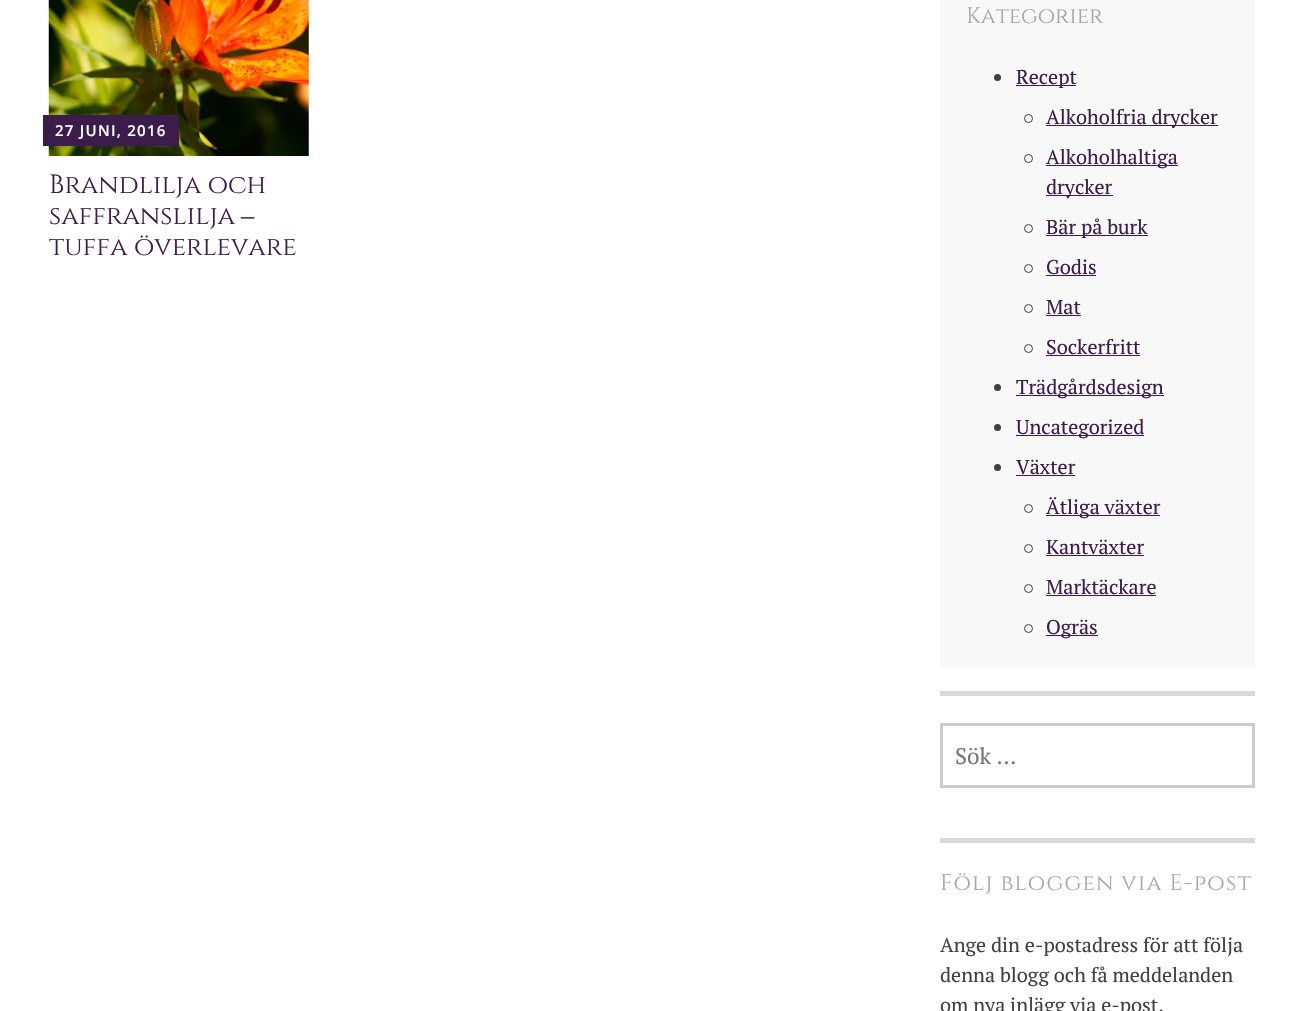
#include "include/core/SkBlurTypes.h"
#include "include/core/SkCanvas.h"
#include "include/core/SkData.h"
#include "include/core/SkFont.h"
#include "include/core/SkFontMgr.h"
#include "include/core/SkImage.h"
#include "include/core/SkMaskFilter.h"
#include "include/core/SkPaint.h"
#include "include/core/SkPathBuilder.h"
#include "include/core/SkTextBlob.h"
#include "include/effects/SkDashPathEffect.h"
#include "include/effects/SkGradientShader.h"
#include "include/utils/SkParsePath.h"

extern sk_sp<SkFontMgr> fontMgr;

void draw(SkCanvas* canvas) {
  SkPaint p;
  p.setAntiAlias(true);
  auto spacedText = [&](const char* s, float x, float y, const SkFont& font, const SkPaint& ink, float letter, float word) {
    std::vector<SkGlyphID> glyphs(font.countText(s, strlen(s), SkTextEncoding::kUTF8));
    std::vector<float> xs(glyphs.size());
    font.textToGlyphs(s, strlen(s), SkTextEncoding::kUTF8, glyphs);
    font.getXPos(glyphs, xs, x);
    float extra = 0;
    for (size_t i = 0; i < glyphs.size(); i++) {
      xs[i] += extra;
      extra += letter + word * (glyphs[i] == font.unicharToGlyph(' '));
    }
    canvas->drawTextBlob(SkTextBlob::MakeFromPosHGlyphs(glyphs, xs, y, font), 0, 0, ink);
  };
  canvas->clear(SK_ColorWHITE);
  canvas->drawImageRect(SkImages::DeferredFromEncodedData(SkData::MakeFromFileName("images/1.png")), SkRect::MakeLTRB(48, 0, 309, 156), SkSamplingOptions());
  p.setColor(SkColorSetRGB(59, 28, 74));
  canvas->drawRect(SkRect::MakeLTRB(43, 115, 179, 146), p);
  p.setColor(SkColorSetRGB(248, 248, 248));
  canvas->drawRect(SkRect::MakeLTRB(940, 0, 1255, 668), p);
  p.setColor(SkColorSetRGB(64, 64, 64));
  canvas->drawCircle(997.5f, 77.5f, 3.5f, p);
  p.setColor(SkColorSetRGB(59, 28, 74));
  canvas->drawRect(SkRect::MakeLTRB(1016, 85, 1076, 86), p);
  p.setStyle(SkPaint::kStroke_Style);
  p.setStrokeWidth(1);
  p.setColor(SkColorSetRGB(64, 64, 64));
  canvas->drawCircle(1028.5f, 118.5f, 4, p);
  p.setStyle(SkPaint::kFill_Style);
  p.setColor(SkColorSetRGB(59, 28, 74));
  canvas->drawRect(SkRect::MakeLTRB(1046, 125, 1218, 126), p);
  p.setStyle(SkPaint::kStroke_Style);
  p.setColor(SkColorSetRGB(64, 64, 64));
  canvas->drawCircle(1028.5f, 158.5f, 4, p);
  p.setStyle(SkPaint::kFill_Style);
  p.setColor(SkColorSetRGB(59, 28, 74));
  canvas->drawRect(SkRect::MakeLTRB(1046, 165, 1178, 166), p);
  canvas->drawRect(SkRect::MakeLTRB(1046, 195, 1113, 196), p);
  p.setStyle(SkPaint::kStroke_Style);
  p.setColor(SkColorSetRGB(64, 64, 64));
  canvas->drawCircle(1028.5f, 228.5f, 4, p);
  p.setStyle(SkPaint::kFill_Style);
  p.setColor(SkColorSetRGB(59, 28, 74));
  canvas->drawRect(SkRect::MakeLTRB(1046, 235, 1148, 236), p);
  p.setStyle(SkPaint::kStroke_Style);
  p.setColor(SkColorSetRGB(64, 64, 64));
  canvas->drawCircle(1028.5f, 268.5f, 4, p);
  p.setStyle(SkPaint::kFill_Style);
  p.setColor(SkColorSetRGB(59, 28, 74));
  canvas->drawRect(SkRect::MakeLTRB(1046, 275, 1096, 276), p);
  p.setStyle(SkPaint::kStroke_Style);
  p.setColor(SkColorSetRGB(64, 64, 64));
  canvas->drawCircle(1028.5f, 308.5f, 4, p);
  p.setStyle(SkPaint::kFill_Style);
  p.setColor(SkColorSetRGB(59, 28, 74));
  canvas->drawRect(SkRect::MakeLTRB(1046, 315, 1081, 316), p);
  p.setStyle(SkPaint::kStroke_Style);
  p.setColor(SkColorSetRGB(64, 64, 64));
  canvas->drawCircle(1028.5f, 348.5f, 4, p);
  p.setStyle(SkPaint::kFill_Style);
  p.setColor(SkColorSetRGB(59, 28, 74));
  canvas->drawRect(SkRect::MakeLTRB(1046, 355, 1140, 356), p);
  p.setColor(SkColorSetRGB(64, 64, 64));
  canvas->drawCircle(997.5f, 387.5f, 3.5f, p);
  p.setColor(SkColorSetRGB(59, 28, 74));
  canvas->drawRect(SkRect::MakeLTRB(1016, 395, 1164, 396), p);
  p.setColor(SkColorSetRGB(64, 64, 64));
  canvas->drawCircle(997.5f, 427.5f, 3.5f, p);
  p.setColor(SkColorSetRGB(59, 28, 74));
  canvas->drawRect(SkRect::MakeLTRB(1016, 435, 1144, 436), p);
  p.setColor(SkColorSetRGB(64, 64, 64));
  canvas->drawCircle(997.5f, 467.5f, 3.5f, p);
  p.setColor(SkColorSetRGB(59, 28, 74));
  canvas->drawRect(SkRect::MakeLTRB(1016, 475, 1075, 476), p);
  p.setStyle(SkPaint::kStroke_Style);
  p.setColor(SkColorSetRGB(64, 64, 64));
  canvas->drawCircle(1028.5f, 508.5f, 4, p);
  p.setStyle(SkPaint::kFill_Style);
  p.setColor(SkColorSetRGB(59, 28, 74));
  canvas->drawRect(SkRect::MakeLTRB(1046, 515, 1160, 516), p);
  p.setStyle(SkPaint::kStroke_Style);
  p.setColor(SkColorSetRGB(64, 64, 64));
  canvas->drawCircle(1028.5f, 548.5f, 4, p);
  p.setStyle(SkPaint::kFill_Style);
  p.setColor(SkColorSetRGB(59, 28, 74));
  canvas->drawRect(SkRect::MakeLTRB(1046, 555, 1144, 556), p);
  p.setStyle(SkPaint::kStroke_Style);
  p.setColor(SkColorSetRGB(64, 64, 64));
  canvas->drawCircle(1028.5f, 588.5f, 4, p);
  p.setStyle(SkPaint::kFill_Style);
  p.setColor(SkColorSetRGB(59, 28, 74));
  canvas->drawRect(SkRect::MakeLTRB(1046, 595, 1156, 596), p);
  p.setStyle(SkPaint::kStroke_Style);
  p.setColor(SkColorSetRGB(64, 64, 64));
  canvas->drawCircle(1028.5f, 628.5f, 4, p);
  p.setStyle(SkPaint::kFill_Style);
  p.setColor(SkColorSetRGB(59, 28, 74));
  canvas->drawRect(SkRect::MakeLTRB(1046, 635, 1098, 636), p);
  p.setColor(SkColorSetRGB(217, 217, 217));
  canvas->drawRect(SkRect::MakeLTRB(940, 691, 1255, 696), p);
  p.setStyle(SkPaint::kStroke_Style);
  p.setStrokeWidth(3);
  p.setColor(SkColorSetRGB(204, 204, 204));
  canvas->drawRect(SkRect::MakeLTRB(941.5f, 724.5f, 1253.5f, 786.5f), p);
  p.setStyle(SkPaint::kFill_Style);
  p.setColor(SkColorSetRGB(217, 217, 217));
  canvas->drawRect(SkRect::MakeLTRB(940, 838, 1255, 843), p);
  SkFont font1(fontMgr->matchFamilyStyle("Open Sans", SkFontStyle(600, SkFontStyle::kNormal_Width, SkFontStyle::kUpright_Slant)), 15);
  font1.setSubpixel(true);
  p.setColor(SK_ColorWHITE);
  spacedText("27 JUNI, 2016", 55, 136, font1, p, 1.25f, 0);
  SkFont font2(fontMgr->matchFamilyStyle("Cinzel", SkFontStyle::Normal()), 26.25f);
  font2.setSubpixel(true);
  p.setColor(SkColorSetRGB(59, 28, 74));
  canvas->drawString("Brandlilja och", 49, 193, font2, p);
  canvas->drawString("saffranslilja", 49, 224, font2, p);
  SkFont font3(fontMgr->matchFamilyStyle("Liberation Serif", SkFontStyle::Normal()), 26.25f);
  font3.setSubpixel(true);
  canvas->drawString("‒", 241, 224, font3, p);
  canvas->drawString("tuffa överlevare", 49, 255, font2, p);
  SkFont font4(fontMgr->matchFamilyStyle("Cinzel", SkFontStyle::Normal()), 22.5f);
  font4.setSubpixel(true);
  p.setColor(SkColorSetRGB(166, 166, 166));
  canvas->drawString("Kategorier", 966, 23, font4, p);
  SkFont font5(fontMgr->matchFamilyStyle("PT Serif", SkFontStyle::Normal()), 20);
  font5.setSubpixel(true);
  p.setColor(SkColorSetRGB(59, 28, 74));
  canvas->drawString("Recept", 1016, 84, font5, p);
  canvas->drawString("Alkoholfria drycker", 1046, 124, font5, p);
  canvas->drawString("Alkoholhaltiga", 1046, 164, font5, p);
  canvas->drawString("drycker", 1046, 194, font5, p);
  canvas->drawString("Bär på burk", 1046, 234, font5, p);
  canvas->drawString("Godis", 1046, 274, font5, p);
  canvas->drawString("Mat", 1046, 314, font5, p);
  canvas->drawString("Sockerfritt", 1046, 354, font5, p);
  canvas->drawString("Trädgårdsdesign", 1016, 394, font5, p);
  canvas->drawString("Uncategorized", 1016, 434, font5, p);
  canvas->drawString("Växter", 1016, 474, font5, p);
  canvas->drawString("Ätliga växter", 1046, 514, font5, p);
  canvas->drawString("Kantväxter", 1046, 554, font5, p);
  canvas->drawString("Marktäckare", 1046, 594, font5, p);
  canvas->drawString("Ogräs", 1046, 634, font5, p);
  SkFont font6(fontMgr->matchFamilyStyle("PT Serif", SkFontStyle::Normal()), 22.5f);
  font6.setSubpixel(true);
  p.setColor(SkColorSetRGB(117, 117, 117));
  canvas->drawString("Sök …", 955, 764, font6, p);
  p.setColor(SkColorSetRGB(166, 166, 166));
  spacedText("Följ bloggen via E-post", 940, 890, font4, p, 1.25f, 0);
  p.setColor(SkColorSetRGB(64, 64, 64));
  canvas->drawString("Ange din e-postadress för att följa", 940, 952, font5, p);
  canvas->drawString("denna blogg och få meddelanden", 940, 982, font5, p);
  canvas->drawString("om nya inlägg via e-post.", 940, 1012, font5, p);
}
